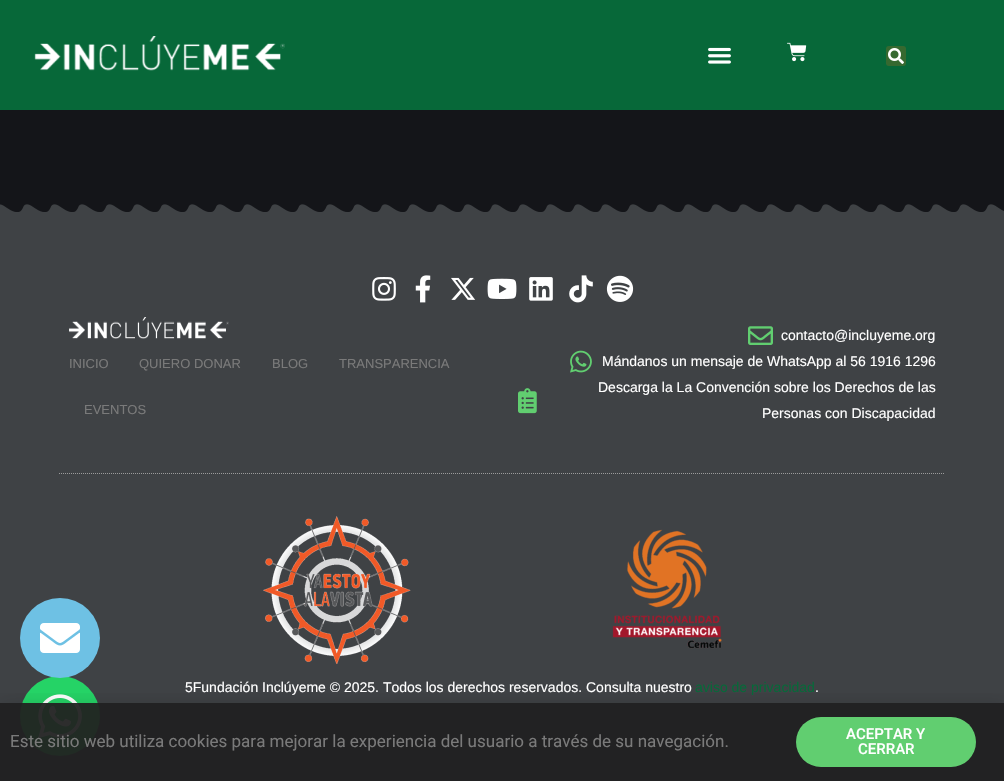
#include "include/core/SkBlurTypes.h"
#include "include/core/SkCanvas.h"
#include "include/core/SkData.h"
#include "include/core/SkFont.h"
#include "include/core/SkFontMgr.h"
#include "include/core/SkImage.h"
#include "include/core/SkMaskFilter.h"
#include "include/core/SkPaint.h"
#include "include/core/SkPathBuilder.h"
#include "include/core/SkTextBlob.h"
#include "include/effects/SkDashPathEffect.h"
#include "include/effects/SkGradientShader.h"
#include "include/utils/SkParsePath.h"

extern sk_sp<SkFontMgr> fontMgr;

void draw(SkCanvas* canvas) {
  SkPaint p;
  p.setAntiAlias(true);
  canvas->clear(SkColorSetRGB(20, 21, 25));
  p.setColor(SkColorSetRGB(7, 104, 57));
  canvas->drawRect(SkRect::MakeLTRB(0, 0, 1004, 110), p);
  canvas->drawImageRect(SkImages::DeferredFromEncodedData(SkData::MakeFromFileName("images/1.png")), SkRect::MakeLTRB(34, 36, 285, 71), SkSamplingOptions());
  canvas->drawImageRect(SkImages::DeferredFromEncodedData(SkData::MakeFromFileName("images/2.png")), SkRect::MakeLTRB(708, 47, 731, 64), SkSamplingOptions());
  canvas->drawImageRect(SkImages::DeferredFromEncodedData(SkData::MakeFromFileName("images/3.png")), SkRect::MakeLTRB(787, 42, 807, 62), SkSamplingOptions());
  p.setColor(SkColorSetRGB(54, 105, 48));
  canvas->drawRoundRect(SkRect::MakeLTRB(886, 46, 906, 66), 3, 3, p);
  canvas->drawImageRect(SkImages::DeferredFromEncodedData(SkData::MakeFromFileName("images/4.png")), SkRect::MakeLTRB(888, 48, 904, 64), SkSamplingOptions());
  p.setColor(SkColorSetRGB(63, 66, 69));
  canvas->drawRect(SkRect::MakeLTRB(0, 204, 1004, 781), p);
  p.setColor(SkColorSetRGB(37, 211, 102));
  canvas->drawCircle(60, 716, 40, p);
  p.setColor(SkColorSetRGB(110, 193, 228));
  canvas->drawCircle(60, 638, 40, p);
  canvas->drawImageRect(SkImages::DeferredFromEncodedData(SkData::MakeFromFileName("images/5.png")), SkRect::MakeLTRB(40, 623, 80, 653), SkSamplingOptions());
  canvas->drawImageRect(SkImages::DeferredFromEncodedData(SkData::MakeFromFileName("images/6.png")), SkRect::MakeLTRB(38, 694, 82, 739), SkSamplingOptions());
  canvas->drawImageRect(SkImages::DeferredFromEncodedData(SkData::MakeFromFileName("images/7.png")), SkRect::MakeLTRB(0, 203, 1004, 212), SkSamplingOptions());
  canvas->drawImageRect(SkImages::DeferredFromEncodedData(SkData::MakeFromFileName("images/8.png")), SkRect::MakeLTRB(372, 277, 396, 301), SkSamplingOptions());
  canvas->drawImageRect(SkImages::DeferredFromEncodedData(SkData::MakeFromFileName("images/9.png")), SkRect::MakeLTRB(415, 275, 431, 303), SkSamplingOptions());
  canvas->drawImageRect(SkImages::DeferredFromEncodedData(SkData::MakeFromFileName("images/10.png")), SkRect::MakeLTRB(451, 277, 476, 300), SkSamplingOptions());
  canvas->drawImageRect(SkImages::DeferredFromEncodedData(SkData::MakeFromFileName("images/11.png")), SkRect::MakeLTRB(487, 278, 517, 299), SkSamplingOptions());
  canvas->drawImageRect(SkImages::DeferredFromEncodedData(SkData::MakeFromFileName("images/12.png")), SkRect::MakeLTRB(529, 277, 553, 301), SkSamplingOptions());
  canvas->drawImageRect(SkImages::DeferredFromEncodedData(SkData::MakeFromFileName("images/13.png")), SkRect::MakeLTRB(569, 275, 593, 303), SkSamplingOptions());
  canvas->drawImageRect(SkImages::DeferredFromEncodedData(SkData::MakeFromFileName("images/14.png")), SkRect::MakeLTRB(606, 275, 634, 302), SkSamplingOptions());
  p.setStyle(SkPaint::kStroke_Style);
  p.setStrokeWidth(1);
  p.setColor(SkColorSetRGB(155, 155, 155));
  p.setPathEffect(SkDashPathEffect::Make({{1, 1}}, 0));
  canvas->drawPath(SkPathBuilder().moveTo(59, 473.5f).lineTo(945, 473.5f).detach(), p);
  p.setPathEffect(nullptr);
  canvas->drawImageRect(SkImages::DeferredFromEncodedData(SkData::MakeFromFileName("images/15.png")), SkRect::MakeLTRB(69, 317, 229, 339), SkSamplingOptions());
  canvas->drawImageRect(SkImages::DeferredFromEncodedData(SkData::MakeFromFileName("images/16.png")), SkRect::MakeLTRB(748, 326, 773, 345), SkSamplingOptions());
  canvas->drawImageRect(SkImages::DeferredFromEncodedData(SkData::MakeFromFileName("images/17.png")), SkRect::MakeLTRB(570, 350, 592, 373), SkSamplingOptions());
  canvas->drawImageRect(SkImages::DeferredFromEncodedData(SkData::MakeFromFileName("images/18.png")), SkRect::MakeLTRB(518, 388, 537, 414), SkSamplingOptions());
  canvas->drawImageRect(SkImages::DeferredFromEncodedData(SkData::MakeFromFileName("images/19.png")), SkRect::MakeLTRB(263, 516, 411, 664), SkSamplingOptions());
  canvas->drawImageRect(SkImages::DeferredFromEncodedData(SkData::MakeFromFileName("images/20.png")), SkRect::MakeLTRB(612, 529, 722, 649), SkSamplingOptions());
  canvas->save();
  canvas->clipRect(SkRect::MakeLTRB(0, 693, 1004, 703));
  p.setStyle(SkPaint::kFill_Style);
  p.setColor(SkColorSetARGB(51, 0, 0, 0));
  p.setMaskFilter(SkMaskFilter::MakeBlur(kNormal_SkBlurStyle, 11.5f));
  canvas->drawRect(SkRect::MakeLTRB(-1, 708, 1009, 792), p);
  p.setMaskFilter(nullptr);
  canvas->restore();
  p.setColor(SkColorSetARGB(240, 32, 32, 32));
  canvas->drawRect(SkRect::MakeLTRB(0, 703, 1004, 781), p);
  p.setColor(SkColorSetRGB(97, 206, 112));
  canvas->drawRoundRect(SkRect::MakeLTRB(796, 717, 976, 767), 25, 25, p);
  SkFont font1(fontMgr->matchFamilyStyle("Liberation Sans", SkFontStyle::Normal()), 13);
  font1.setSubpixel(true);
  p.setColor(SkColorSetRGB(122, 122, 122));
  canvas->drawString("INICIO", 69, 368, font1, p);
  canvas->drawString("QUIERO DONAR", 139, 368, font1, p);
  canvas->drawString("BLOG", 272, 368, font1, p);
  canvas->drawString("TRANSPARENCIA", 339, 368, font1, p);
  canvas->drawString("EVENTOS", 84, 414, font1, p);
  SkFont font2(fontMgr->matchFamilyStyle("Liberation Sans", SkFontStyle::Normal()), 14);
  font2.setSubpixel(true);
  p.setColor(SK_ColorWHITE);
  canvas->drawString("contacto@incluyeme.org", 781, 340, font2, p);
  canvas->drawString("Mándanos un mensaje de WhatsApp al 56 1916 1296", 602, 366, font2, p);
  canvas->drawString("Descarga la La Convención sobre los Derechos de las", 598, 392, font2, p);
  canvas->drawString("Personas con Discapacidad", 762, 418, font2, p);
  canvas->drawString("5Fundación Inclúyeme © 2025. Todos los derechos reservados. Consulta nuestro", 185, 692, font2, p);
  p.setColor(SkColorSetRGB(7, 104, 57));
  canvas->drawString("aviso de privacidad", 695, 692, font2, p);
  p.setColor(SK_ColorWHITE);
  canvas->drawString(".", 815, 692, font2, p);
  SkFont font3(fontMgr->matchFamilyStyle("Roboto", SkFontStyle::Normal()), 17);
  font3.setSubpixel(true);
  p.setColor(SkColorSetRGB(122, 122, 122));
  canvas->drawString("Este sitio web utiliza cookies para mejorar la experiencia del usuario a través de su navegación.", 10, 747, font3, p);
  SkFont font4(fontMgr->matchFamilyStyle("Roboto", SkFontStyle(500, SkFontStyle::kNormal_Width, SkFontStyle::kUpright_Slant)), 15);
  font4.setSubpixel(true);
  p.setColor(SK_ColorWHITE);
  canvas->drawString("ACEPTAR Y", 846, 739, font4, p);
  canvas->drawString("CERRAR", 858, 754, font4, p);
}
